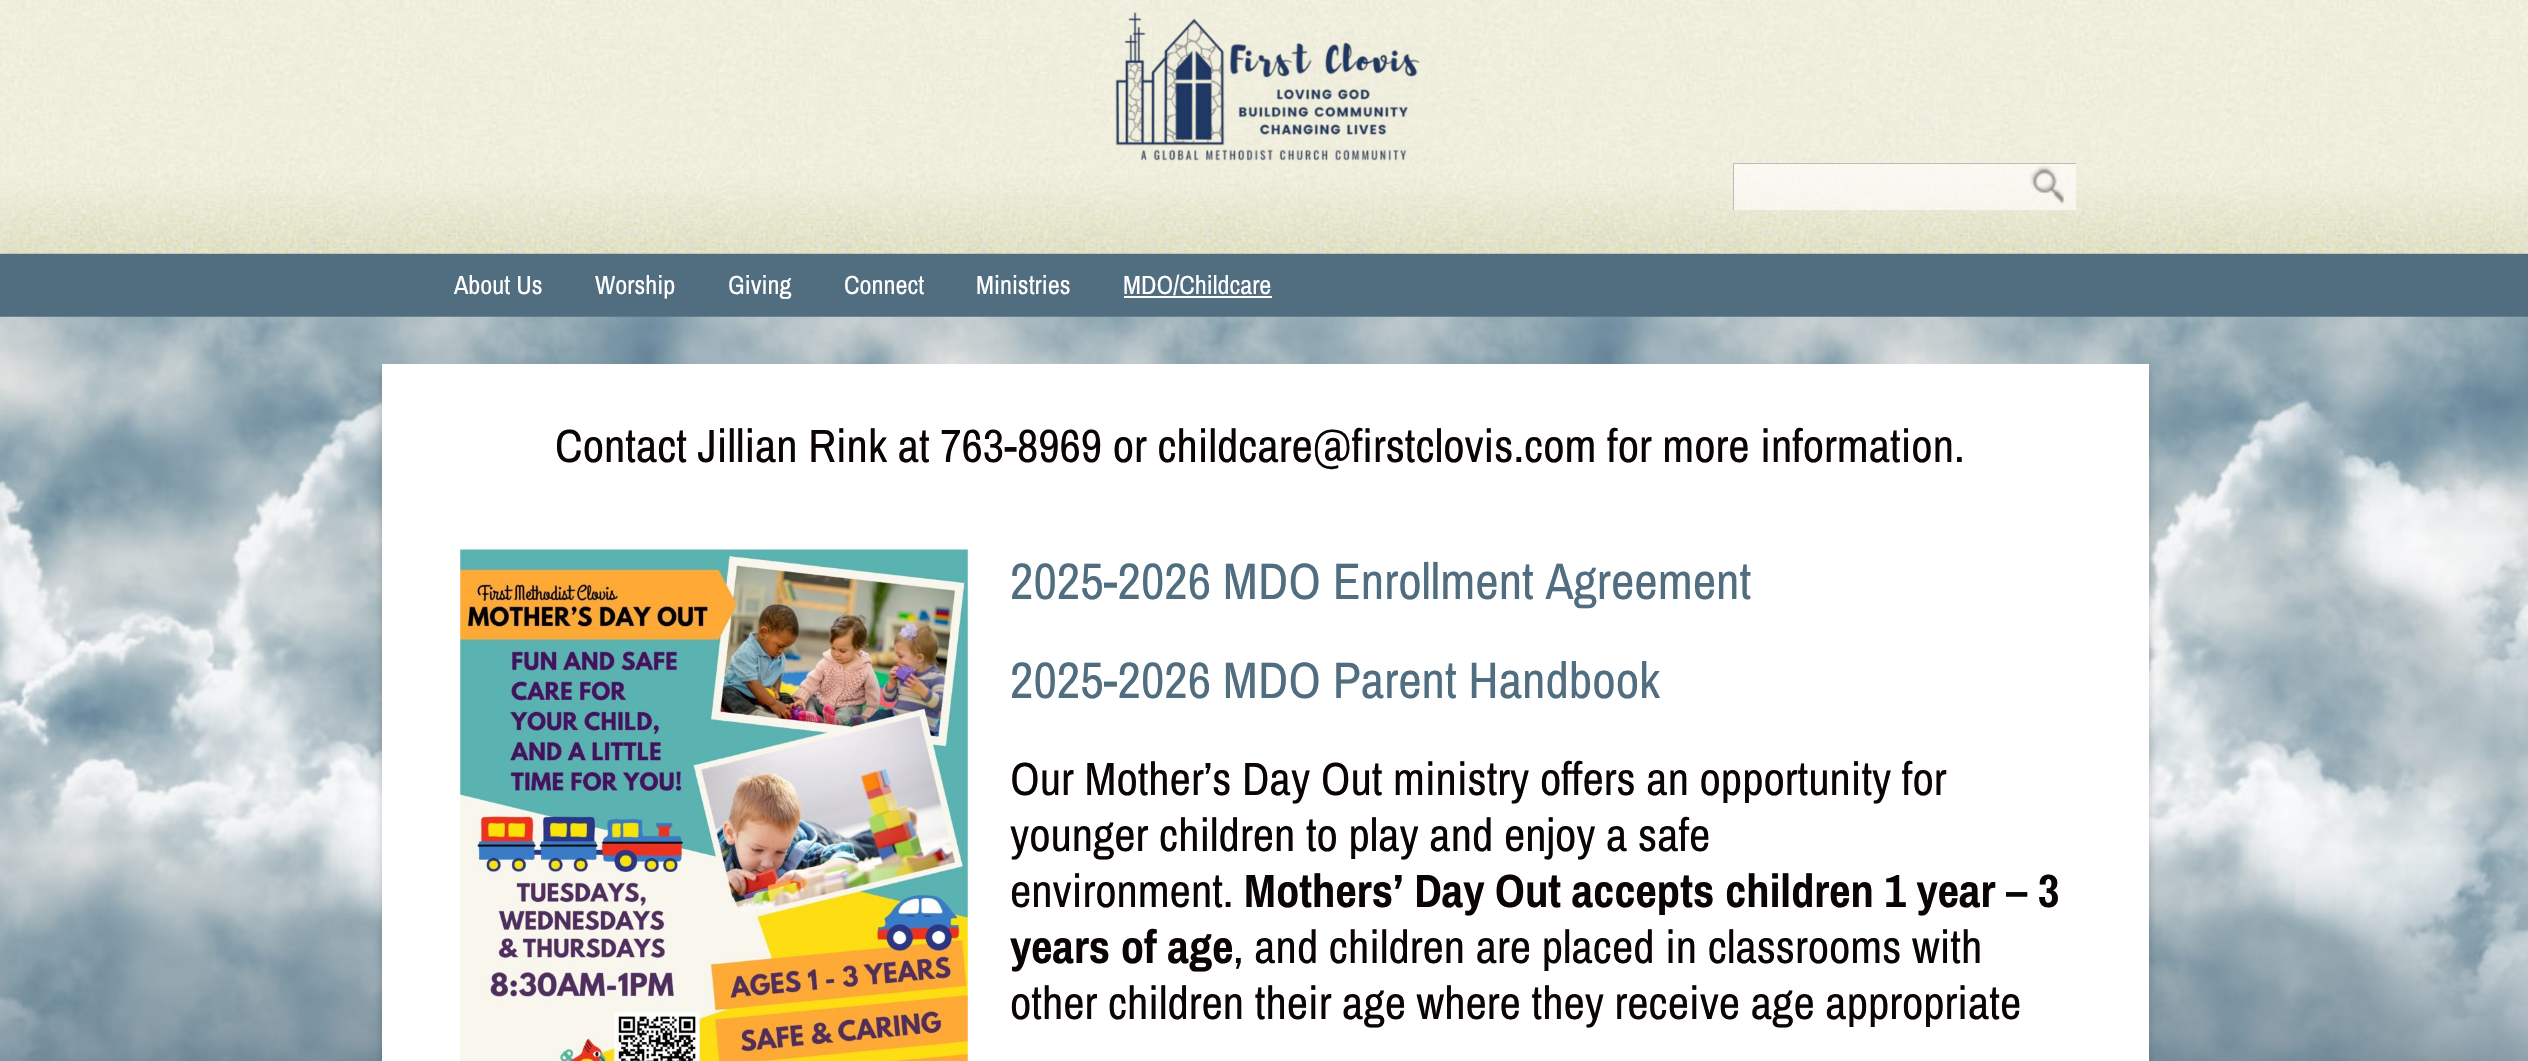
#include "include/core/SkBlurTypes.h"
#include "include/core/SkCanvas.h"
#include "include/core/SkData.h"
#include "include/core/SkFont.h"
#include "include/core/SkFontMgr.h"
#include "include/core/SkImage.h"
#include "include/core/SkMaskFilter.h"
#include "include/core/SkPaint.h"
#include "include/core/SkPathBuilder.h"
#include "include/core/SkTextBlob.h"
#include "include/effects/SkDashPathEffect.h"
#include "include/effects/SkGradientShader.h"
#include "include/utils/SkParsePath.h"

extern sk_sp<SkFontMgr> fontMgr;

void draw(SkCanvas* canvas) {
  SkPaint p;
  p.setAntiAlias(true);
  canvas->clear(SkColorSetRGB(81, 110, 128));
  canvas->drawImageRect(SkImages::DeferredFromEncodedData(SkData::MakeFromFileName("images/1.png")), SkRect::MakeLTRB(0, 316, 2528, 1061), SkSamplingOptions());
  canvas->drawImageRect(SkImages::DeferredFromEncodedData(SkData::MakeFromFileName("images/2.png")), SkRect::MakeLTRB(0, 0, 2528, 254), SkSamplingOptions());
  canvas->drawImageRect(SkImages::DeferredFromEncodedData(SkData::MakeFromFileName("images/3.png")), SkRect::MakeLTRB(1115, 12, 1420, 161), SkSamplingOptions());
  p.setColor(SkColorSetARGB(153, 255, 255, 255));
  canvas->drawRect(SkRect::MakeLTRB(1734, 164, 2076, 210), p);
  canvas->save();
  canvas->clipRect(SkRect::MakeLTRB(1733, 163, 2076, 210));
  p.setColor(SkColorSetRGB(187, 187, 187));
  canvas->drawPath(SkPathBuilder(SkPathFillType::kEvenOdd).moveTo(1559, -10).lineTo(2249, -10).lineTo(2249, 383).lineTo(1559, 383).close().moveTo(1734, 164).lineTo(2077, 164).lineTo(2077, 212).lineTo(1734, 212).close().detach(), p);
  canvas->restore();
  canvas->drawImageRect(SkImages::DeferredFromEncodedData(SkData::MakeFromFileName("images/4.png")), SkRect::MakeLTRB(2030, 166, 2064, 204), SkSamplingOptions());
  p.setColor(SK_ColorWHITE);
  canvas->drawRect(SkRect::MakeLTRB(1124, 296, 1272, 298), p);
  p.setColor(SkColorSetARGB(51, 0, 0, 0));
  p.setMaskFilter(SkMaskFilter::MakeBlur(kNormal_SkBlurStyle, 4.5f));
  canvas->drawRect(SkRect::MakeLTRB(382, 373, 2149, 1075), p);
  p.setMaskFilter(nullptr);
  p.setColor(SK_ColorWHITE);
  canvas->drawRect(SkRect::MakeLTRB(382, 364, 2149, 1061), p);
  canvas->drawImageRect(SkImages::DeferredFromEncodedData(SkData::MakeFromFileName("images/5.png")), SkRect::MakeLTRB(460, 549, 968, 1061), SkSamplingOptions());
  SkFont font1(fontMgr->matchFamilyStyle("Archivo Narrow", SkFontStyle::Normal()), 26.25f);
  font1.setSubpixel(true);
  canvas->drawString("About Us", 454, 294, font1, p);
  canvas->drawString("Worship", 595, 294, font1, p);
  canvas->drawString("Giving", 728, 294, font1, p);
  canvas->drawString("Connect", 844, 294, font1, p);
  canvas->drawString("Ministries", 976, 294, font1, p);
  canvas->drawString("MDO/Childcare", 1123, 294, font1, p);
  SkFont font2(fontMgr->matchFamilyStyle("Archivo Narrow", SkFontStyle::Normal()), 46.7f);
  font2.setSubpixel(true);
  p.setColor(SkColorSetRGB(10, 4, 4));
  canvas->drawString("Contact Jillian Rink at 763-8969 or childcare@firstclovis.com for more information.", 555, 462, font2, p);
  SkFont font3(fontMgr->matchFamilyStyle("Archivo Narrow", SkFontStyle::Normal()), 51.3f);
  font3.setSubpixel(true);
  p.setColor(SkColorSetRGB(81, 110, 128));
  canvas->drawString("2025-2026 MDO Enrollment Agreement", 1010, 599, font3, p);
  canvas->drawString("2025-2026 MDO Parent Handbook", 1010, 698, font3, p);
  p.setColor(SkColorSetRGB(10, 4, 4));
  canvas->drawString("Our Mother’s Day Out ministry offers an opportunity for", 1010, 795, font2, p);
  canvas->drawString("younger children to play and enjoy a safe", 1010, 851, font2, p);
  canvas->drawString("environment.", 1010, 907, font2, p);
  SkFont font4(fontMgr->matchFamilyStyle("Archivo Narrow", SkFontStyle::Bold()), 46.7f);
  font4.setSubpixel(true);
  canvas->drawString("Mothers’ Day Out accepts children 1 year – 3", 1244, 907, font4, p);
  canvas->drawString("years of age", 1010, 963, font4, p);
  canvas->drawString(", and children are placed in classrooms with", 1233, 963, font2, p);
  canvas->drawString("other children their age where they receive age appropriate", 1010, 1019, font2, p);
}
